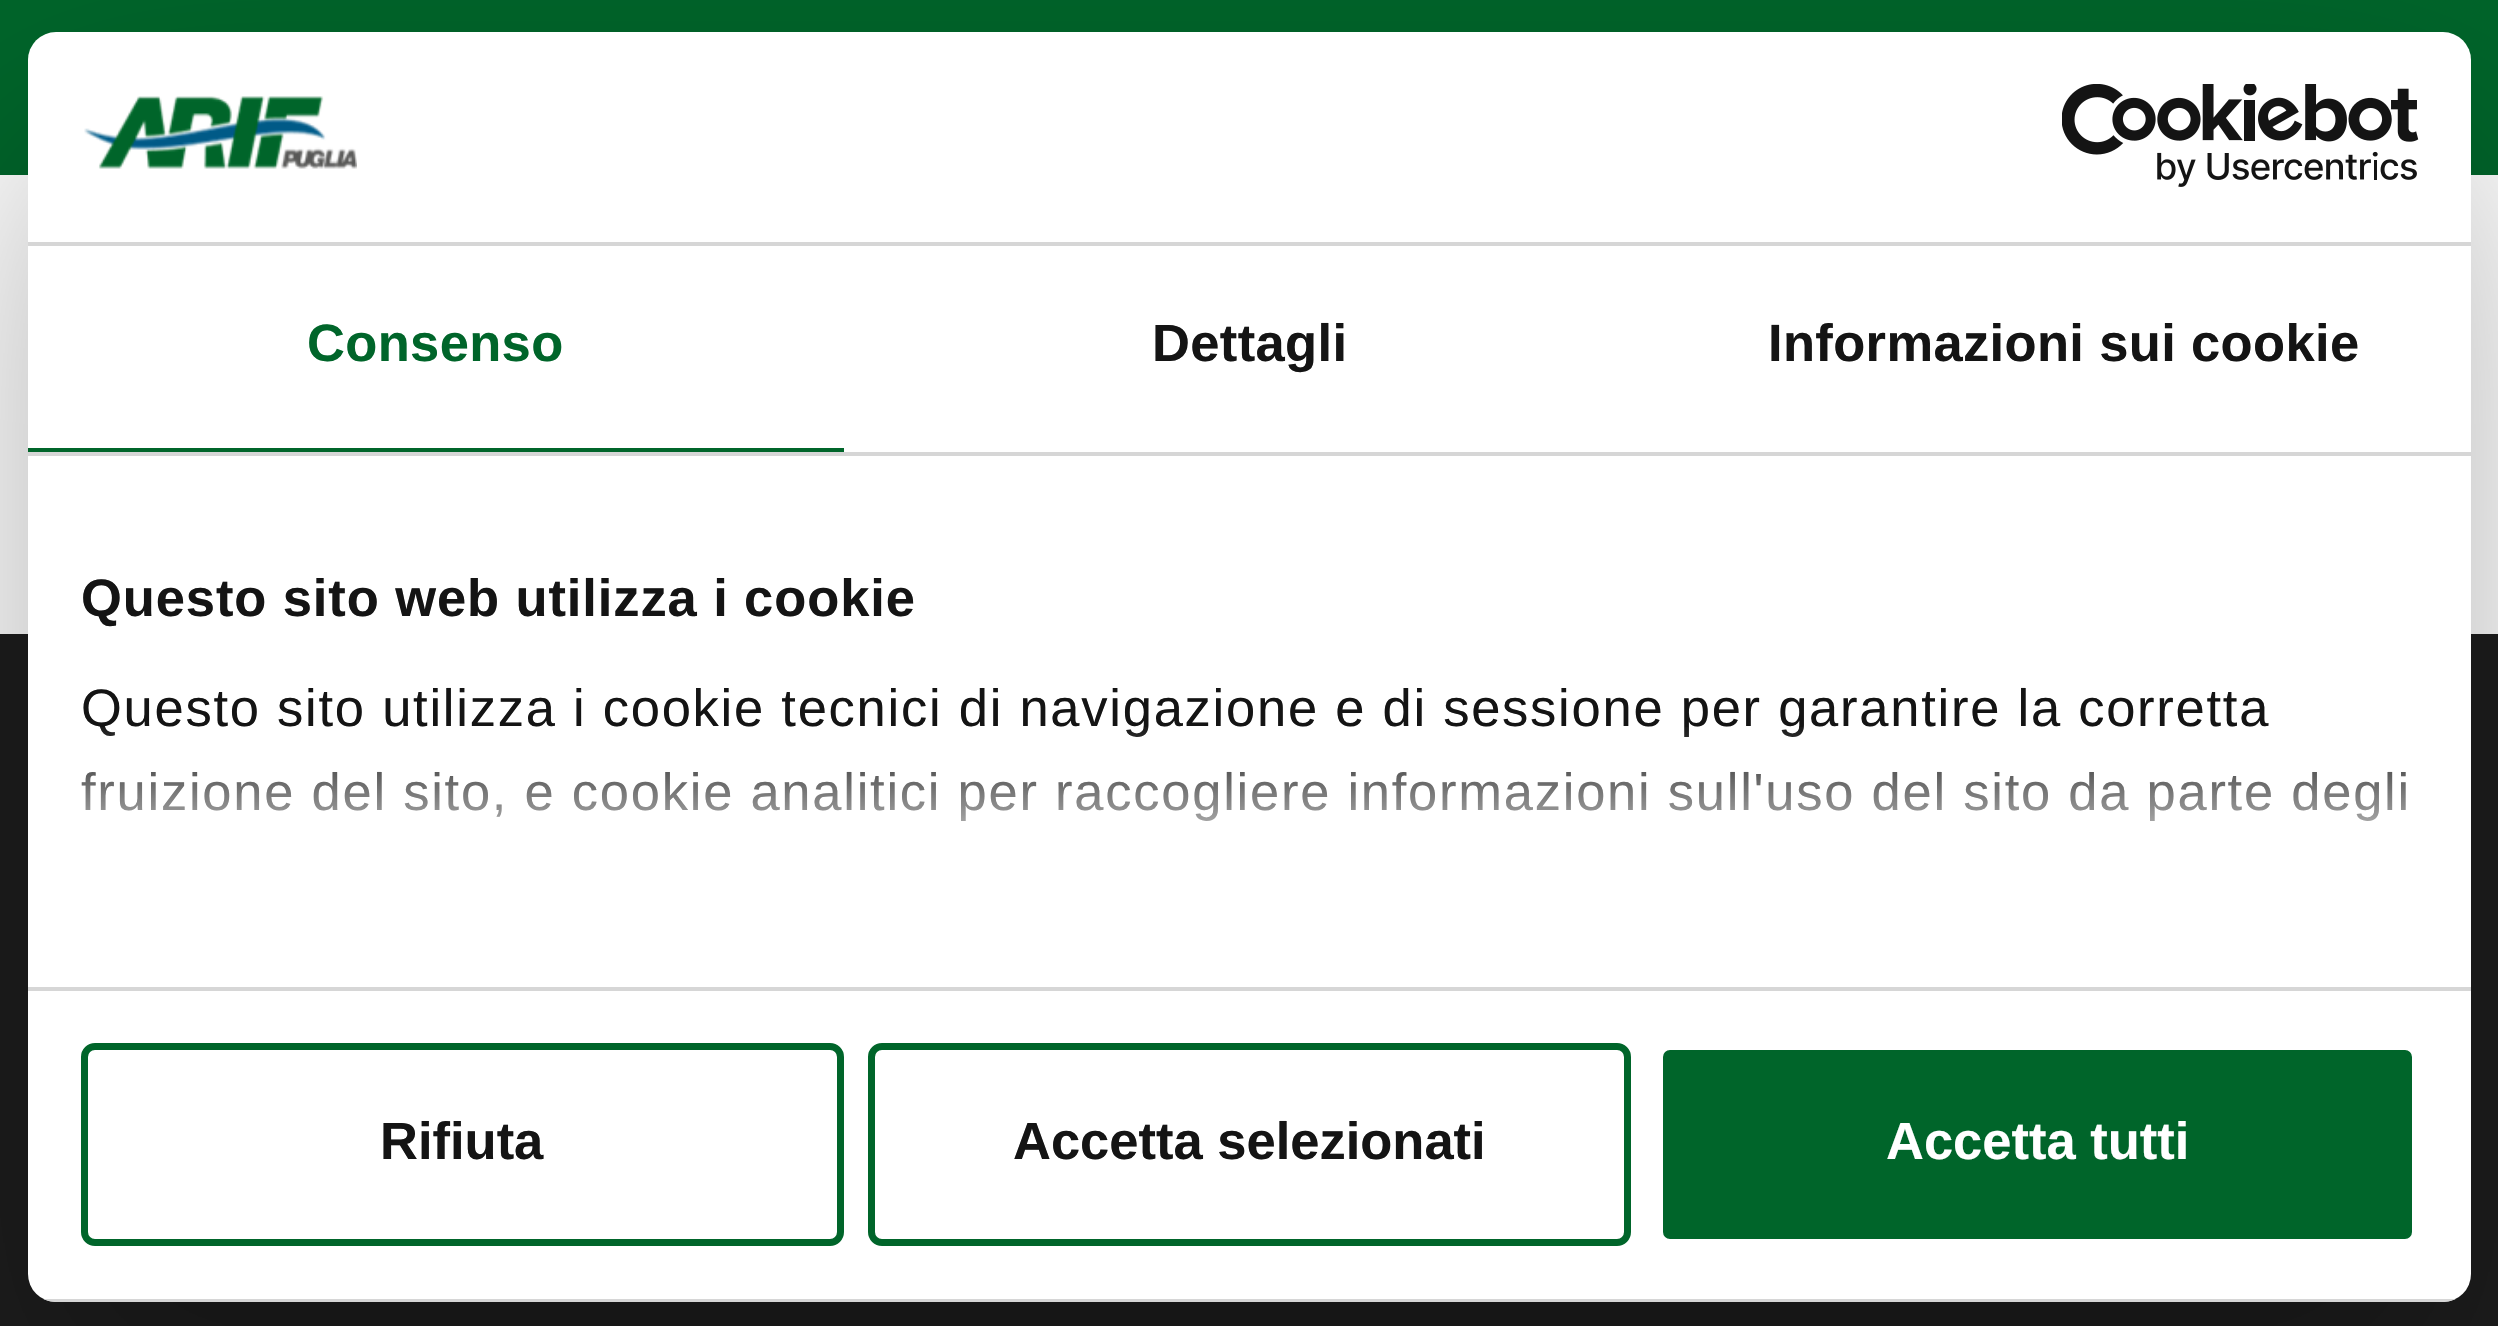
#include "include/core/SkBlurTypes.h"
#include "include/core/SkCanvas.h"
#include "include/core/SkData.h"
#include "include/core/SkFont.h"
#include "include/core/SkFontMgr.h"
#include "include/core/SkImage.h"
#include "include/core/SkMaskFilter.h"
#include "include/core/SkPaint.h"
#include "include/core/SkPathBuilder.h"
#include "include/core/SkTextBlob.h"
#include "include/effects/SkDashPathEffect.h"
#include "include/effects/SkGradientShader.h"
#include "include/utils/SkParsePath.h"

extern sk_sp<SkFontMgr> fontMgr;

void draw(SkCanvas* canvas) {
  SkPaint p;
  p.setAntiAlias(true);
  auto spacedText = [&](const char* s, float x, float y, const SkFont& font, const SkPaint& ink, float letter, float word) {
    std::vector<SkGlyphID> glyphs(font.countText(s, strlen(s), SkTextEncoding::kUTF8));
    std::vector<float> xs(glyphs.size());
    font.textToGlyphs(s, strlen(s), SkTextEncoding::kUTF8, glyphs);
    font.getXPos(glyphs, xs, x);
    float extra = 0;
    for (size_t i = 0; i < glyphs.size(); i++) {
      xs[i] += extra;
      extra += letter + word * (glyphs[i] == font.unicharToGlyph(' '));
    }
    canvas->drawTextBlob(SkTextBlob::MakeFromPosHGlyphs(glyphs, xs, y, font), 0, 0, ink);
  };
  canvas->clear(SkColorSetRGB(29, 29, 29));
  p.setColor(SkColorSetRGB(0, 101, 42));
  canvas->drawRect(SkRect::MakeLTRB(0, 0, 2498, 175), p);
  p.setColor(SK_ColorWHITE);
  canvas->drawRect(SkRect::MakeLTRB(0, 175, 2498, 634), p);
  canvas->save();
  canvas->clipPath(SkPathBuilder(SkPathFillType::kEvenOdd).moveTo(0, 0).lineTo(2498, 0).lineTo(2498, 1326).lineTo(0, 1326).close().moveTo(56, 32).lineTo(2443, 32).cubicTo(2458.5f, 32, 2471, 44.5f, 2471, 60).lineTo(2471, 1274).cubicTo(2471, 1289.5f, 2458.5f, 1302, 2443, 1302).lineTo(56, 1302).cubicTo(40.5f, 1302, 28, 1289.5f, 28, 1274).lineTo(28, 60).cubicTo(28, 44.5f, 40.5f, 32, 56, 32).close().detach(), true);
  p.setColor(SkColorSetARGB(77, 0, 0, 0));
  p.setMaskFilter(SkMaskFilter::MakeBlur(kNormal_SkBlurStyle, 119));
  canvas->drawRoundRect(SkRect::MakeLTRB(28, 144, 2471, 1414), 28, 28, p);
  p.setMaskFilter(nullptr);
  canvas->restore();
  p.setColor(SK_ColorWHITE);
  canvas->drawRoundRect(SkRect::MakeLTRB(28, 32, 2471, 1302), 28, 28, p);
  p.setColor(SkColorSetRGB(214, 214, 214));
  canvas->drawRect(SkRect::MakeLTRB(28, 242, 2471, 246), p);
  canvas->drawImageRect(SkImages::DeferredFromEncodedData(SkData::MakeFromFileName("images/1.png")), SkRect::MakeLTRB(84, 96, 357, 169), SkSamplingOptions());
  canvas->drawImageRect(SkImages::DeferredFromEncodedData(SkData::MakeFromFileName("images/2.png")), SkRect::MakeLTRB(2062, 84, 2419, 187), SkSamplingOptions());
  canvas->drawRect(SkRect::MakeLTRB(28, 452, 2471, 456), p);
  p.setColor(SkColorSetRGB(0, 101, 42));
  canvas->drawRect(SkRect::MakeLTRB(28, 448, 844, 452), p);
  p.setColor(SkColorSetRGB(214, 214, 214));
  canvas->drawRect(SkRect::MakeLTRB(28, 987, 2471, 991), p);
  canvas->save();
  canvas->clipPath(SkPathBuilder().moveTo(56, 32).lineTo(2443, 32).cubicTo(2458.5f, 32, 2471, 44.5f, 2471, 60).lineTo(2471, 1274).cubicTo(2471, 1289.5f, 2458.5f, 1302, 2443, 1302).lineTo(56, 1302).cubicTo(40.5f, 1302, 28, 1289.5f, 28, 1274).lineTo(28, 60).cubicTo(28, 44.5f, 40.5f, 32, 56, 32).close().detach(), true);
  canvas->drawRect(SkRect::MakeLTRB(43, 1299, 2456, 1302), p);
  canvas->restore();
  p.setStyle(SkPaint::kStroke_Style);
  p.setStrokeWidth(7);
  p.setColor(SkColorSetRGB(0, 101, 42));
  canvas->drawRoundRect(SkRect::MakeLTRB(84.5f, 1046.5f, 840.5f, 1242.5f), 10.5f, 10.5f, p);
  canvas->drawRoundRect(SkRect::MakeLTRB(871.5f, 1046.5f, 1627.5f, 1242.5f), 10.5f, 10.5f, p);
  p.setStyle(SkPaint::kFill_Style);
  canvas->drawRoundRect(SkRect::MakeLTRB(1659.5f, 1046.5f, 2415.5f, 1242.5f), 10.5f, 10.5f, p);
  p.setStyle(SkPaint::kStroke_Style);
  p.setColor(SK_ColorWHITE);
  canvas->drawRoundRect(SkRect::MakeLTRB(1659.5f, 1046.5f, 2415.5f, 1242.5f), 10.5f, 10.5f, p);
  SkFont font1(fontMgr->matchFamilyStyle("Liberation Sans", SkFontStyle::Bold()), 52.5f);
  font1.setSubpixel(true);
  p.setStyle(SkPaint::kFill_Style);
  p.setColor(SkColorSetRGB(0, 101, 42));
  spacedText("Consenso", 307, 361, font1, p, 0.35f, 0);
  p.setColor(SkColorSetRGB(20, 20, 20));
  spacedText("Dettagli", 1152, 361, font1, p, 0.35f, 0);
  spacedText("Informazioni sui cookie", 1768, 361, font1, p, 0.35f, 0);
  spacedText("Questo sito web utilizza i cookie", 81, 616, font1, p, 0.9f, 0);
  SkFont font2(fontMgr->matchFamilyStyle("Liberation Sans", SkFontStyle::Normal()), 52.5f);
  font2.setSubpixel(true);
  spacedText("Questo sito utilizza i cookie tecnici di navigazione e di sessione per garantire la corretta", 81, 726, font2, p, 1.75f, 0);
  spacedText("fruizione del sito, e cookie analitici per raccogliere informazioni sull'uso del sito da parte degli", 81, 810, font2, p, 1.75f, 0);
  {
    const SkColor colors[] = {SK_ColorWHITE, SkColorSetARGB(204, 255, 255, 255), SkColorSetARGB(0, 255, 255, 255)};
    const float stops[] = {0, 0.5f, 1};
    const SkPoint ends[] = {{1227, 985}, {1227, 723}};
    p.setShader(SkGradientShader::MakeLinear(ends, colors, stops, 3, SkTileMode::kClamp));
    p.setAlpha(255);
  }
  canvas->drawRect(SkRect::MakeLTRB(81, 727, 2406, 821), p);
  p.setShader(nullptr);
  p.setColor(SkColorSetRGB(20, 20, 20));
  canvas->drawString("Rifiuta", 380, 1159, font1, p);
  canvas->drawString("Accetta selezionati", 1013, 1159, font1, p);
  p.setColor(SK_ColorWHITE);
  canvas->drawString("Accetta tutti", 1886, 1159, font1, p);
}
